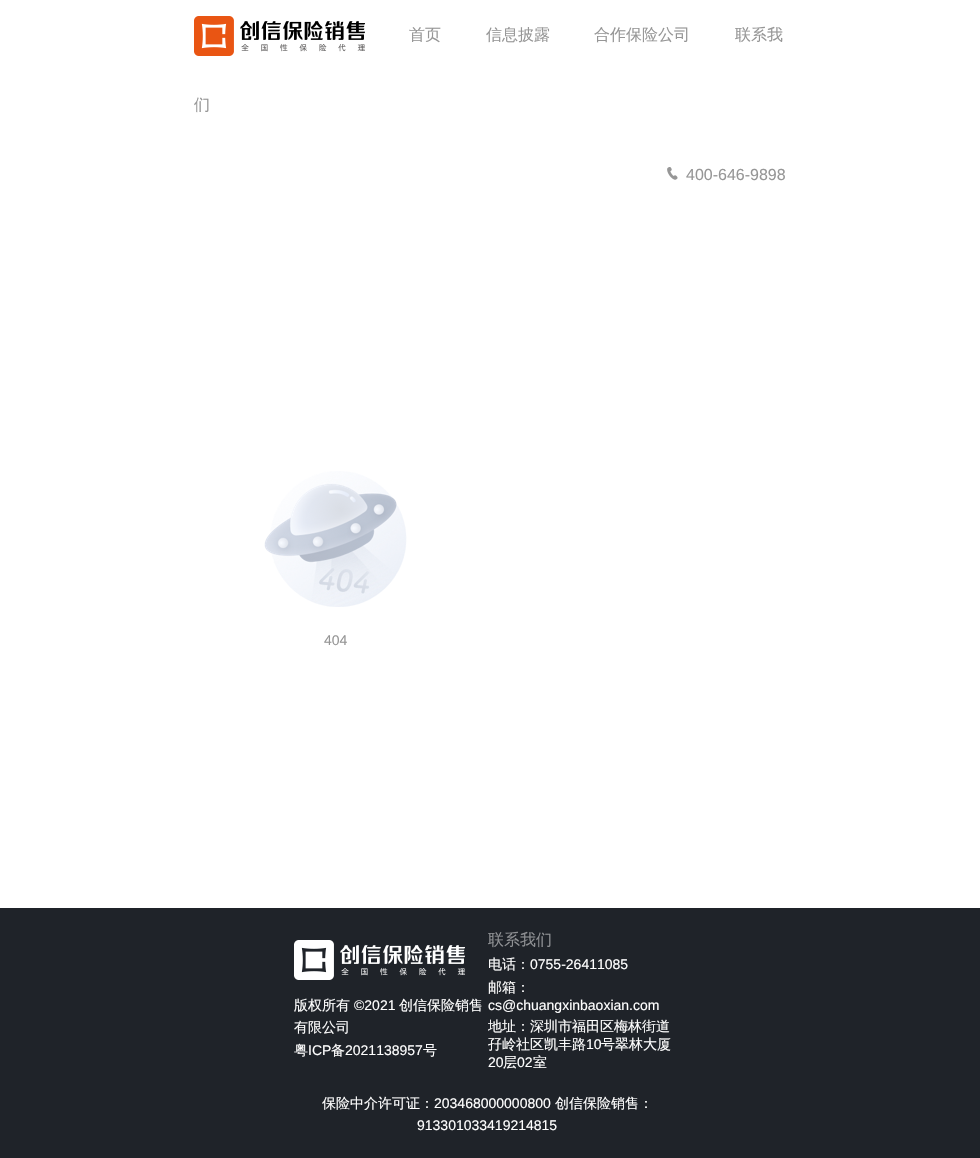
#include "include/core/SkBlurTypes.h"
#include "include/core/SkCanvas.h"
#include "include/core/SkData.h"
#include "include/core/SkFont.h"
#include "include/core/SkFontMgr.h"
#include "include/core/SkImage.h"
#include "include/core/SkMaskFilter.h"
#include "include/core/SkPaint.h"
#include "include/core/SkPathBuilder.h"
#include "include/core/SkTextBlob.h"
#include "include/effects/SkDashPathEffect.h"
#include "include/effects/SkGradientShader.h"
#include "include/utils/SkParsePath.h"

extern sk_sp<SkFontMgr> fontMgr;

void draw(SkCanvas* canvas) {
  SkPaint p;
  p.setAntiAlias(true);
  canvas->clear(SK_ColorWHITE);
  canvas->drawImageRect(SkImages::DeferredFromEncodedData(SkData::MakeFromFileName("images/1.png")), SkRect::MakeLTRB(194, 16, 365, 56), SkSamplingOptions());
  canvas->drawImageRect(SkImages::DeferredFromEncodedData(SkData::MakeFromFileName("images/2.png")), SkRect::MakeLTRB(667, 167, 678, 180), SkSamplingOptions());
  canvas->drawImageRect(SkImages::DeferredFromEncodedData(SkData::MakeFromFileName("images/3.png")), SkRect::MakeLTRB(264, 471, 407, 607), SkSamplingOptions());
  p.setColor(SkColorSetRGB(31, 35, 41));
  canvas->drawRect(SkRect::MakeLTRB(0, 908, 980, 1158), p);
  canvas->drawImageRect(SkImages::DeferredFromEncodedData(SkData::MakeFromFileName("images/4.png")), SkRect::MakeLTRB(294, 940, 465, 980), SkSamplingOptions());
  SkFont font1(fontMgr->matchFamilyStyle("WenQuanYi Zen Hei", SkFontStyle(500, SkFontStyle::kNormal_Width, SkFontStyle::kUpright_Slant)), 16);
  font1.setSubpixel(true);
  p.setColor(SkColorSetRGB(150, 150, 150));
  canvas->drawString("首页", 409, 40, font1, p);
  canvas->drawString("信息披露", 486, 40, font1, p);
  canvas->drawString("合作保险公司", 594, 40, font1, p);
  canvas->drawString("联系我", 735, 40, font1, p);
  canvas->drawString("们", 194, 110, font1, p);
  SkFont font2(fontMgr->matchFamilyStyle("Liberation Sans", SkFontStyle::Normal()), 16);
  font2.setSubpixel(true);
  canvas->drawString("400-646-9898", 686, 180, font2, p);
  SkFont font3(fontMgr->matchFamilyStyle("Liberation Sans", SkFontStyle::Normal()), 14);
  font3.setSubpixel(true);
  canvas->drawString("404", 324, 645, font3, p);
  SkFont font4(fontMgr->matchFamilyStyle("WenQuanYi Zen Hei", SkFontStyle(500, SkFontStyle::kNormal_Width, SkFontStyle::kUpright_Slant)), 14);
  font4.setSubpixel(true);
  p.setColor(SK_ColorWHITE);
  canvas->drawString("版权所有", 294, 1010, font4, p);
  canvas->drawString("©2021", 354, 1010, font3, p);
  canvas->drawString("创信保险销售", 399, 1010, font4, p);
  canvas->drawString("有限公司", 294, 1032, font4, p);
  canvas->drawString("粤", 294, 1055, font4, p);
  canvas->drawString("ICP", 308, 1055, font3, p);
  canvas->drawString("备", 331, 1055, font4, p);
  canvas->drawString("2021138957", 345, 1055, font3, p);
  canvas->drawString("号", 423, 1055, font4, p);
  p.setColor(SkColorSetRGB(143, 145, 148));
  canvas->drawString("联系我们", 488, 945, font1, p);
  p.setColor(SK_ColorWHITE);
  canvas->drawString("电话：", 488, 969, font4, p);
  canvas->drawString("0755-26411085", 530, 969, font3, p);
  canvas->drawString("邮箱：", 488, 992, font4, p);
  canvas->drawString("cs@chuangxinbaoxian.com", 488, 1010, font3, p);
  canvas->drawString("地址：深圳市福田区梅林街道", 488, 1031, font4, p);
  canvas->drawString("孖岭社区凯丰路", 488, 1049, font4, p);
  canvas->drawString("10", 586, 1049, font3, p);
  canvas->drawString("号翠林大厦", 601, 1049, font4, p);
  canvas->drawString("20", 488, 1067, font3, p);
  canvas->drawString("层", 503, 1067, font4, p);
  canvas->drawString("02", 517, 1067, font3, p);
  canvas->drawString("室", 533, 1067, font4, p);
  canvas->drawString("保险中介许可证：", 322, 1108, font4, p);
  canvas->drawString("203468000000800", 434, 1108, font3, p);
  canvas->drawString("创信保险销售：", 555, 1108, font4, p);
  canvas->drawString("913301033419214815", 417, 1130, font3, p);
}
